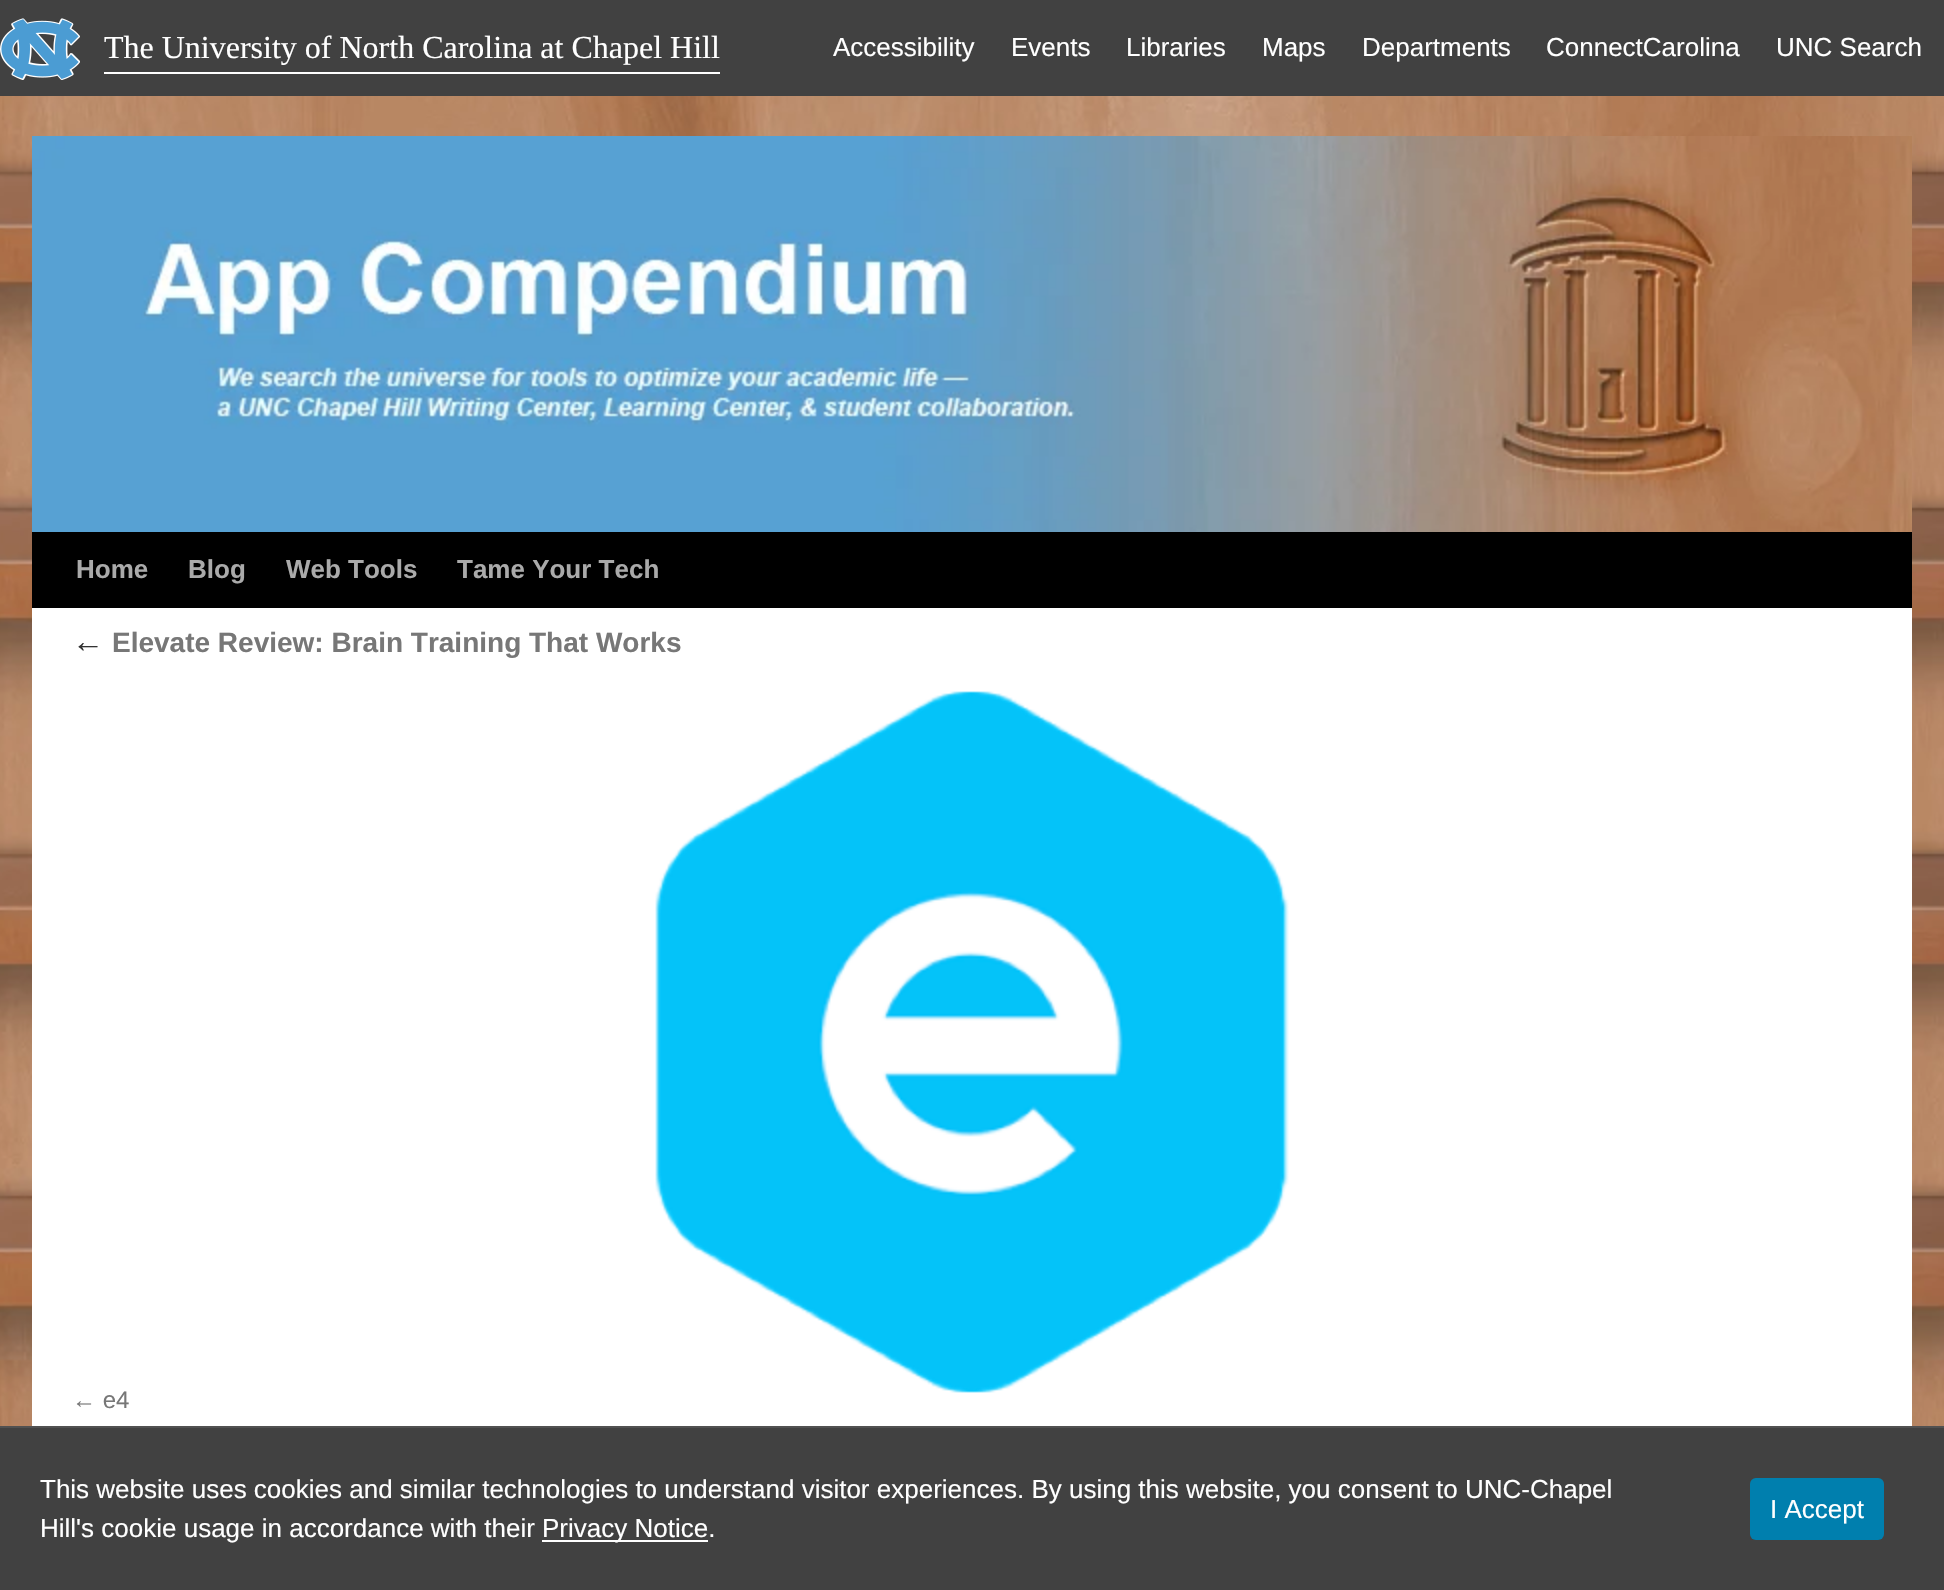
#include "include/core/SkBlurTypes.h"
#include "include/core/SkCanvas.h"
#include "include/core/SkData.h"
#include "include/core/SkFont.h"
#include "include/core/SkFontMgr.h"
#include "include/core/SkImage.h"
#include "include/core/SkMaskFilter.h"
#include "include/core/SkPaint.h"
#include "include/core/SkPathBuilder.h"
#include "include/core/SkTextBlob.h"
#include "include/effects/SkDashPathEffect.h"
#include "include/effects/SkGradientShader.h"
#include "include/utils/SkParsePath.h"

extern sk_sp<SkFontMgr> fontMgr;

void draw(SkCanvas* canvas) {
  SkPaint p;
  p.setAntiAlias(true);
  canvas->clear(SK_ColorWHITE);
  canvas->drawImageRect(SkImages::DeferredFromEncodedData(SkData::MakeFromFileName("images/1.png")), SkRect::MakeLTRB(0, 96, 1944, 1426), SkSamplingOptions());
  p.setColor(SkColorSetRGB(65, 65, 65));
  canvas->drawRect(SkRect::MakeLTRB(0, 0, 1944, 96), p);
  canvas->drawImageRect(SkImages::DeferredFromEncodedData(SkData::MakeFromFileName("images/2.png")), SkRect::MakeLTRB(0, 18, 80, 80), SkSamplingOptions());
  p.setColor(SK_ColorWHITE);
  canvas->drawRect(SkRect::MakeLTRB(104, 72, 720, 74), p);
  canvas->drawRect(SkRect::MakeLTRB(32, 608, 1912, 1426), p);
  canvas->drawImageRect(SkImages::DeferredFromEncodedData(SkData::MakeFromFileName("images/3.png")), SkRect::MakeLTRB(32, 136, 1912, 532), SkSamplingOptions());
  p.setColor(SK_ColorBLACK);
  canvas->drawRect(SkRect::MakeLTRB(32, 532, 1912, 608), p);
  canvas->drawImageRect(SkImages::DeferredFromEncodedData(SkData::MakeFromFileName("images/4.png")), SkRect::MakeLTRB(655, 691, 1289, 1393), SkSamplingOptions());
  p.setColor(SkColorSetRGB(65, 65, 65));
  canvas->drawRect(SkRect::MakeLTRB(0, 1428, 1944, 1590), p);
  p.setColor(SkColorSetRGB(81, 81, 81));
  canvas->drawRect(SkRect::MakeLTRB(0, 1426, 1944, 1428), p);
  p.setColor(SK_ColorWHITE);
  canvas->drawRect(SkRect::MakeLTRB(542, 1540, 708, 1542), p);
  p.setColor(SkColorSetRGB(0, 127, 174));
  canvas->drawRoundRect(SkRect::MakeLTRB(1750, 1478, 1884, 1540), 6, 6, p);
  SkFont font1(fontMgr->matchFamilyStyle("Liberation Serif", SkFontStyle::Normal()), 32);
  font1.setSubpixel(true);
  p.setColor(SK_ColorWHITE);
  canvas->drawString("The University of North Carolina at Chapel Hill", 104, 58, font1, p);
  SkFont font2(fontMgr->matchFamilyStyle("Liberation Sans", SkFontStyle::Normal()), 26);
  font2.setSubpixel(true);
  canvas->drawString("Accessibility", 833, 56, font2, p);
  canvas->drawString("Events", 1011, 56, font2, p);
  canvas->drawString("Libraries", 1126, 56, font2, p);
  canvas->drawString("Maps", 1262, 56, font2, p);
  canvas->drawString("Departments", 1362, 56, font2, p);
  canvas->drawString("ConnectCarolina", 1546, 56, font2, p);
  canvas->drawString("UNC Search", 1776, 56, font2, p);
  SkFont font3(fontMgr->matchFamilyStyle("Liberation Sans", SkFontStyle::Bold()), 26);
  font3.setSubpixel(true);
  p.setColor(SkColorSetRGB(170, 170, 170));
  canvas->drawString("Home", 76, 578, font3, p);
  canvas->drawString("Blog", 188, 578, font3, p);
  canvas->drawString("Web Tools", 286, 578, font3, p);
  canvas->drawString("Tame Your Tech", 457, 578, font3, p);
  SkFont font4(fontMgr->matchFamilyStyle("Liberation Serif", SkFontStyle::Italic()), 32);
  font4.setSubpixel(true);
  p.setColor(SkColorSetRGB(51, 51, 51));
  canvas->drawString("←", 72, 652, font4, p);
  SkFont font5(fontMgr->matchFamilyStyle("Liberation Sans", SkFontStyle::Bold()), 28);
  font5.setSubpixel(true);
  p.setColor(SkColorSetRGB(119, 119, 119));
  canvas->drawString("Elevate Review: Brain Training That Works", 112, 652, font5, p);
  SkFont font6(fontMgr->matchFamilyStyle("Liberation Sans", SkFontStyle::Normal()), 24);
  font6.setSubpixel(true);
  canvas->drawString("← e4", 72, 1408, font6, p);
  p.setColor(SK_ColorWHITE);
  canvas->drawString("This website uses cookies and similar technologies to understand visitor experiences. By using this website, you consent to UNC-Chapel", 40, 1498, font2, p);
  canvas->drawString("Hill's cookie usage in accordance with their", 40, 1537, font2, p);
  canvas->drawString("Privacy Notice.", 542, 1537, font2, p);
  canvas->drawString("I Accept", 1770, 1518, font2, p);
}
